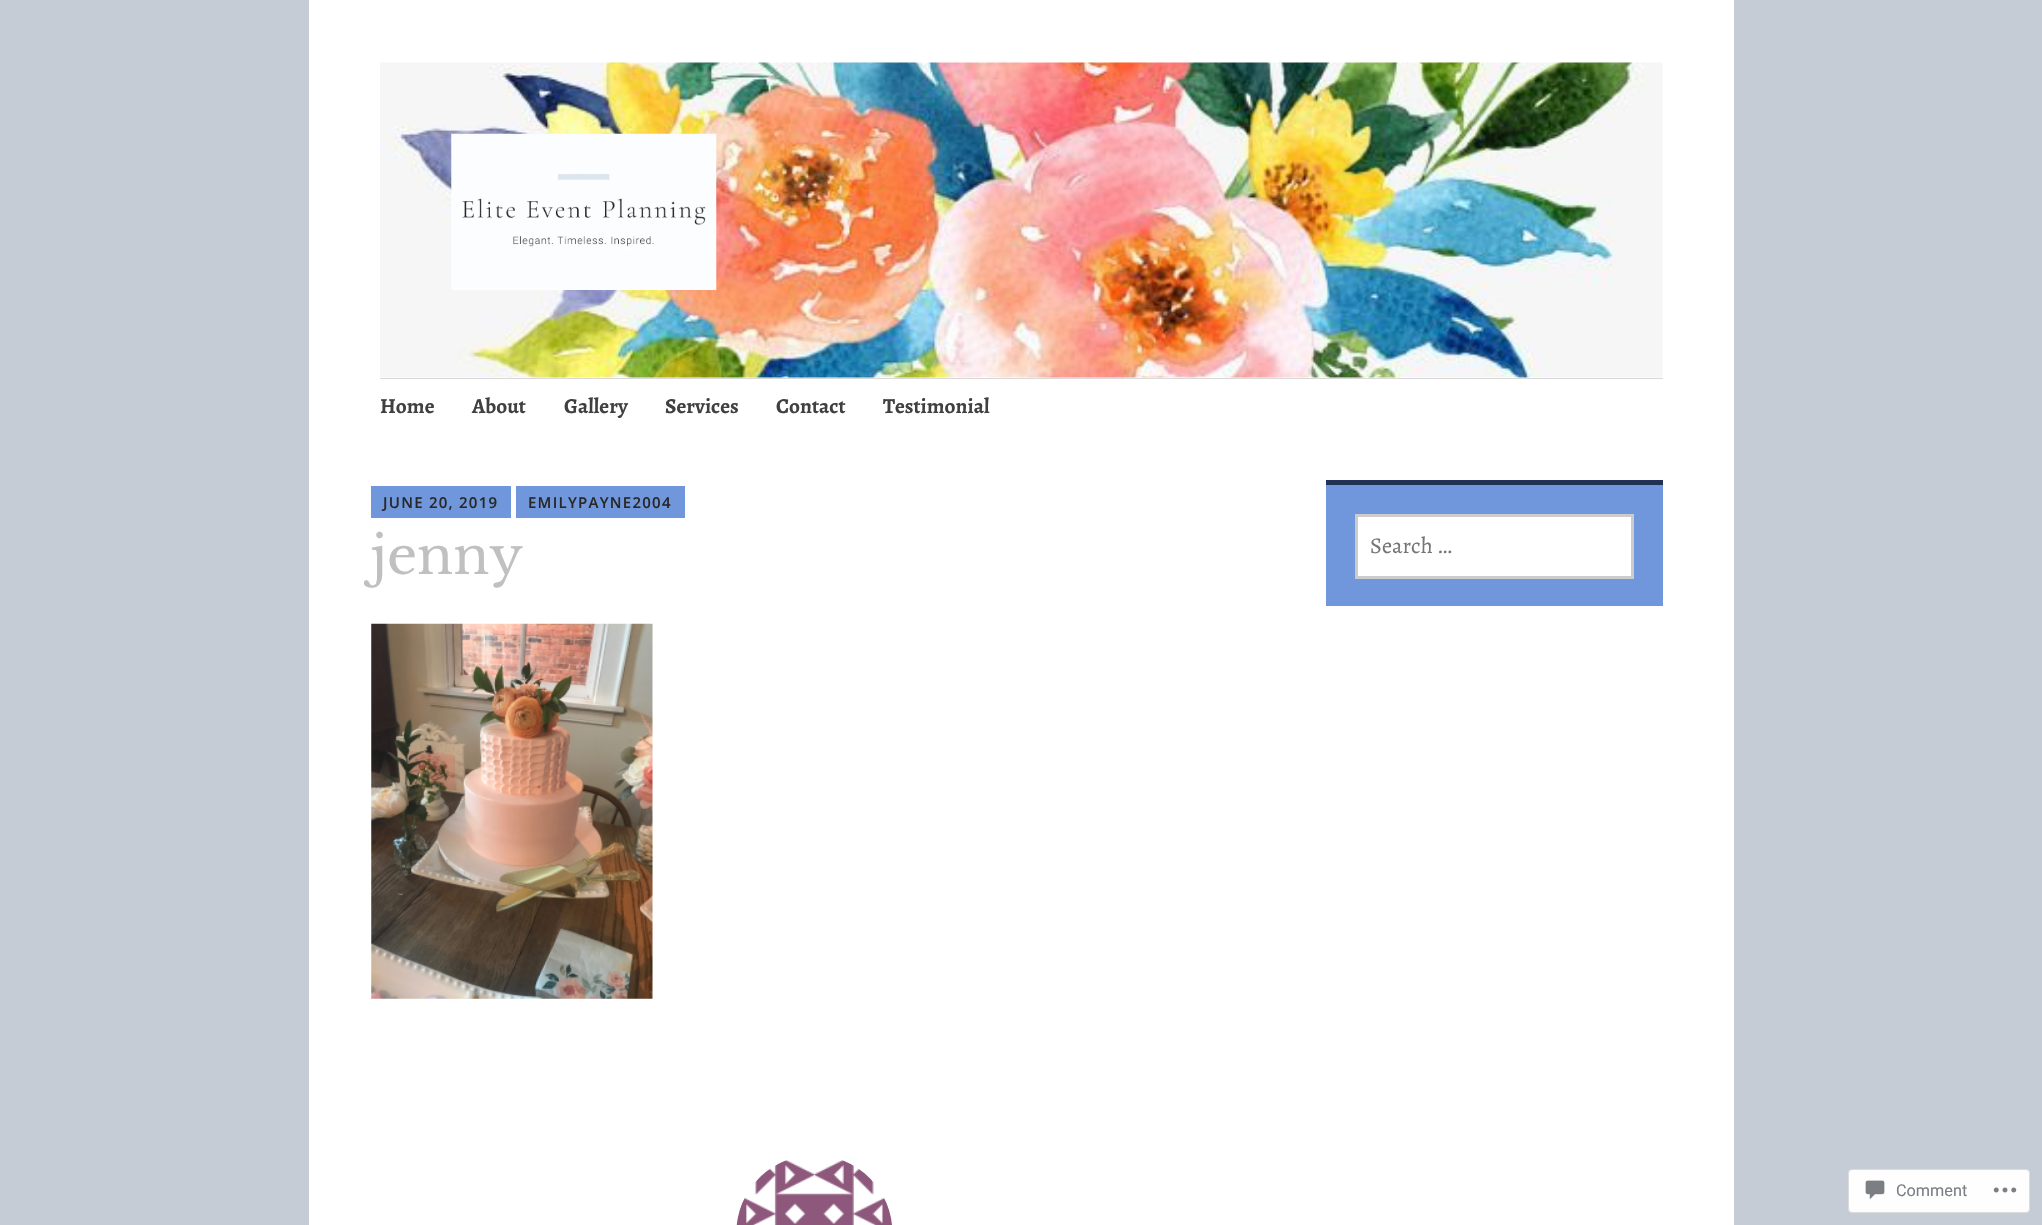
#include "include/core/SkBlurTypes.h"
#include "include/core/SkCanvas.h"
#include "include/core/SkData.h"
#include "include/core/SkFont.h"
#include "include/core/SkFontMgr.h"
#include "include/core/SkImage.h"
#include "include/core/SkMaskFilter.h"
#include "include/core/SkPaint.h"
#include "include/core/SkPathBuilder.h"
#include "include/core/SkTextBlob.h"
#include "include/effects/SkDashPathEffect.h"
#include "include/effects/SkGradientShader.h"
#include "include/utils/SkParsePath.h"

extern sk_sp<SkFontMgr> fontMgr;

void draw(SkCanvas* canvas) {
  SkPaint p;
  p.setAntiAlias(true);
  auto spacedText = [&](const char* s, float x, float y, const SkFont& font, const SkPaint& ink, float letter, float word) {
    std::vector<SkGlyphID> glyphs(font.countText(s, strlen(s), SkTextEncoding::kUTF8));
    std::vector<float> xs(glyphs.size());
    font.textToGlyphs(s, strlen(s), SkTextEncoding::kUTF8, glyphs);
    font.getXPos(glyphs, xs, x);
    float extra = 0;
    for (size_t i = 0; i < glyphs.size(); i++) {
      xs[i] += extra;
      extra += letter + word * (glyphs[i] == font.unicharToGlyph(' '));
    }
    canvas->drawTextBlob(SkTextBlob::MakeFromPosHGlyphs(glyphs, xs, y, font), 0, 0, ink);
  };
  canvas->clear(SkColorSetRGB(197, 204, 214));
  p.setColor(SK_ColorWHITE);
  canvas->drawRect(SkRect::MakeLTRB(309, 0, 1734, 1225), p);
  canvas->drawImageRect(SkImages::DeferredFromEncodedData(SkData::MakeFromFileName("images/1.png")), SkRect::MakeLTRB(380, 62, 1663, 378), SkSamplingOptions());
  canvas->drawImageRect(SkImages::DeferredFromEncodedData(SkData::MakeFromFileName("images/2.png")), SkRect::MakeLTRB(451, 133, 717, 290), SkSamplingOptions());
  p.setColor(SkColorSetRGB(217, 217, 217));
  canvas->drawRect(SkRect::MakeLTRB(380, 378, 1663, 379), p);
  p.setColor(SkColorSetRGB(112, 151, 219));
  canvas->drawRect(SkRect::MakeLTRB(371, 486, 511, 518), p);
  canvas->drawRect(SkRect::MakeLTRB(516, 486, 685, 518), p);
  canvas->drawImageRect(SkImages::DeferredFromEncodedData(SkData::MakeFromFileName("images/3.png")), SkRect::MakeLTRB(371, 623, 653, 999), SkSamplingOptions());
  canvas->drawImageRect(SkImages::DeferredFromEncodedData(SkData::MakeFromFileName("images/4.png")), SkRect::MakeLTRB(736, 1160, 892, 1225), SkSamplingOptions());
  canvas->drawRect(SkRect::MakeLTRB(1326, 485, 1663, 606), p);
  p.setColor(SkColorSetRGB(33, 48, 85));
  canvas->drawRect(SkRect::MakeLTRB(1326, 480, 1663, 485), p);
  p.setColor(SK_ColorWHITE);
  canvas->drawRect(SkRect::MakeLTRB(1356.5f, 515.5f, 1632.5f, 577.5f), p);
  p.setStyle(SkPaint::kStroke_Style);
  p.setStrokeWidth(3);
  p.setColor(SkColorSetRGB(204, 204, 204));
  canvas->drawRect(SkRect::MakeLTRB(1356.5f, 515.5f, 1632.5f, 577.5f), p);
  p.setStyle(SkPaint::kFill_Style);
  p.setColor(SkColorSetRGB(254, 254, 254));
  canvas->drawRoundRect(SkRect::MakeLTRB(1848.5f, 1169.5f, 2029.5f, 1212.5f), 3.5f, 3.5f, p);
  p.setStyle(SkPaint::kStroke_Style);
  p.setStrokeWidth(1);
  p.setColor(SkColorSetRGB(220, 220, 222));
  canvas->drawRoundRect(SkRect::MakeLTRB(1848.5f, 1169.5f, 2029.5f, 1212.5f), 3.5f, 3.5f, p);
  canvas->drawImageRect(SkImages::DeferredFromEncodedData(SkData::MakeFromFileName("images/5.png")), SkRect::MakeLTRB(1865, 1180, 1885, 1200), SkSamplingOptions());
  canvas->drawImageRect(SkImages::DeferredFromEncodedData(SkData::MakeFromFileName("images/6.png")), SkRect::MakeLTRB(1993, 1187, 2017, 1193), SkSamplingOptions());
  SkFont font1(fontMgr->matchFamilyStyle("Alegreya", SkFontStyle::Bold()), 21.25f);
  font1.setSubpixel(true);
  p.setStyle(SkPaint::kFill_Style);
  p.setColor(SkColorSetRGB(64, 64, 64));
  canvas->drawString("Home", 380, 413, font1, p);
  canvas->drawString("About", 472, 413, font1, p);
  canvas->drawString("Gallery", 564, 413, font1, p);
  canvas->drawString("Services", 665, 413, font1, p);
  canvas->drawString("Contact", 776, 413, font1, p);
  canvas->drawString("Testimonial", 883, 413, font1, p);
  SkFont font2(fontMgr->matchFamilyStyle("Open Sans", SkFontStyle(600, SkFontStyle::kNormal_Width, SkFontStyle::kUpright_Slant)), 15);
  font2.setSubpixel(true);
  p.setColor(SkColorSetRGB(40, 40, 40));
  spacedText("JUNE 20, 2019", 383, 508, font2, p, 1.25f, 0);
  spacedText("EMILYPAYNE2004", 528, 508, font2, p, 1.25f, 0);
  SkFont font3(fontMgr->matchFamilyStyle("Libre Baskerville", SkFontStyle::Normal()), 52.5f);
  font3.setSubpixel(true);
  p.setColor(SkColorSetRGB(192, 192, 192));
  canvas->drawString("jenny", 371, 574, font3, p);
  SkFont font4(fontMgr->matchFamilyStyle("Alegreya", SkFontStyle::Normal()), 22.5f);
  font4.setSubpixel(true);
  p.setColor(SkColorSetRGB(117, 117, 117));
  canvas->drawString("Search …", 1370, 553, font4, p);
  SkFont font5(fontMgr->matchFamilyStyle("Roboto", SkFontStyle::Normal()), 16.25f);
  font5.setSubpixel(true);
  p.setColor(SkColorSetRGB(122, 126, 132));
  canvas->drawString("Comment", 1896, 1196, font5, p);
}
